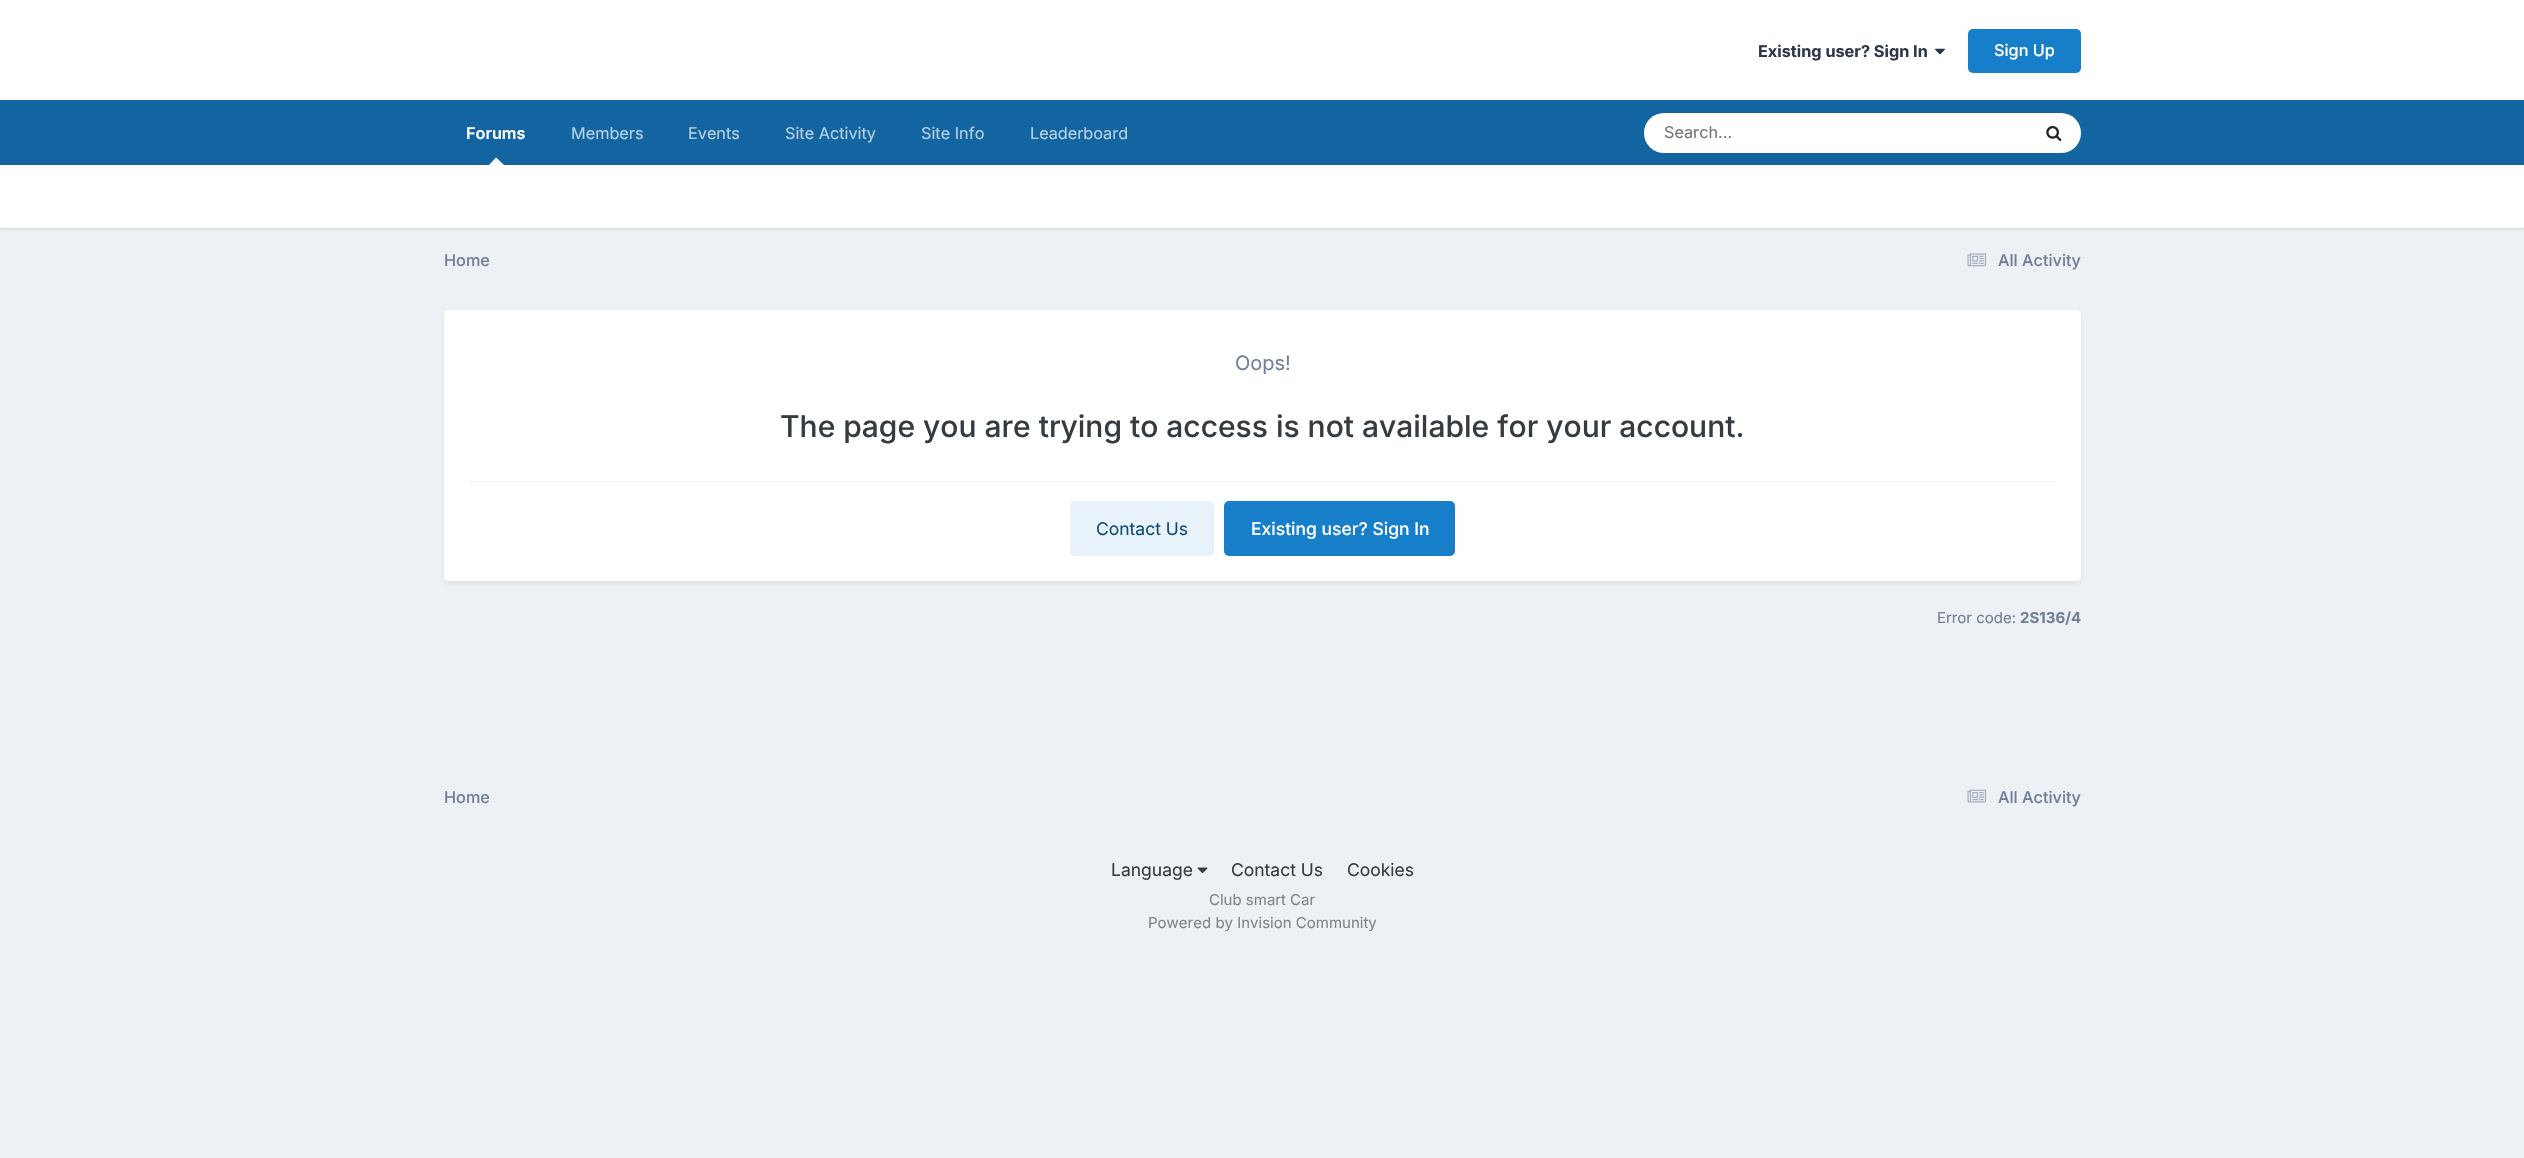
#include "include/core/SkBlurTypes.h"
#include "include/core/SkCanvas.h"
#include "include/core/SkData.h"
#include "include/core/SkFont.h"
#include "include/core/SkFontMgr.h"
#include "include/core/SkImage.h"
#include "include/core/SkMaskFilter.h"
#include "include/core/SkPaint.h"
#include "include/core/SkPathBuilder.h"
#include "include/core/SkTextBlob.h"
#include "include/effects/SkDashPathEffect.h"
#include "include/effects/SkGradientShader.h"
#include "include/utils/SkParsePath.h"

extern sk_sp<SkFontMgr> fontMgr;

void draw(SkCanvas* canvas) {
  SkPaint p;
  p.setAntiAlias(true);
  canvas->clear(SkColorSetRGB(237, 240, 244));
  p.setColor(SK_ColorWHITE);
  canvas->drawRect(SkRect::MakeLTRB(0, 0, 2524, 100), p);
  canvas->drawImageRect(SkImages::DeferredFromEncodedData(SkData::MakeFromFileName("images/1.png")), SkRect::MakeLTRB(1935, 48, 1945, 55), SkSamplingOptions());
  p.setColor(SkColorSetRGB(23, 126, 201));
  canvas->drawRoundRect(SkRect::MakeLTRB(1968, 29, 2081, 73), 5, 5, p);
  p.setColor(SkColorSetRGB(18, 101, 161));
  canvas->drawRect(SkRect::MakeLTRB(0, 100, 2524, 165), p);
  p.setColor(SkColorSetARGB(26, 0, 0, 0));
  p.setMaskFilter(SkMaskFilter::MakeBlur(kNormal_SkBlurStyle, 1));
  canvas->drawRect(SkRect::MakeLTRB(0, 166, 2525, 229), p);
  p.setMaskFilter(nullptr);
  p.setColor(SK_ColorWHITE);
  canvas->drawPath(SkPathBuilder().moveTo(504, 165).lineTo(489, 165).lineTo(496, 157.5f).close().detach(), p);
  canvas->drawRoundRect(SkRect::MakeLTRB(1644, 113, 2081, 153), 20, 20, p);
  canvas->drawImageRect(SkImages::DeferredFromEncodedData(SkData::MakeFromFileName("images/2.png")), SkRect::MakeLTRB(2046, 126, 2062, 142), SkSamplingOptions());
  canvas->drawRect(SkRect::MakeLTRB(0, 165, 2524, 228), p);
  canvas->drawImageRect(SkImages::DeferredFromEncodedData(SkData::MakeFromFileName("images/3.png")), SkRect::MakeLTRB(1967, 253, 1987, 267), SkSamplingOptions());
  p.setColor(SkColorSetARGB(26, 45, 55, 72));
  p.setMaskFilter(SkMaskFilter::MakeBlur(kNormal_SkBlurStyle, 2.5f));
  canvas->drawRoundRect(SkRect::MakeLTRB(445, 314, 2080, 583), 4, 4, p);
  p.setMaskFilter(nullptr);
  p.setColor(SK_ColorWHITE);
  canvas->drawRoundRect(SkRect::MakeLTRB(444, 310, 2081, 581), 5, 5, p);
  p.setColor(SkColorSetRGB(239, 239, 240));
  canvas->drawRect(SkRect::MakeLTRB(469, 481, 2056, 482), p);
  p.setColor(SkColorSetRGB(232, 242, 250));
  canvas->drawRoundRect(SkRect::MakeLTRB(1070, 501, 1214, 556), 5, 5, p);
  p.setColor(SkColorSetRGB(23, 126, 201));
  canvas->drawRoundRect(SkRect::MakeLTRB(1224, 501, 1455, 556), 5, 5, p);
  canvas->drawImageRect(SkImages::DeferredFromEncodedData(SkData::MakeFromFileName("images/4.png")), SkRect::MakeLTRB(1967, 789, 1987, 803), SkSamplingOptions());
  canvas->drawImageRect(SkImages::DeferredFromEncodedData(SkData::MakeFromFileName("images/5.png")), SkRect::MakeLTRB(1197, 867, 1208, 874), SkSamplingOptions());
  SkFont font1(fontMgr->matchFamilyStyle("Inter", SkFontStyle::Bold()), 16.25f);
  font1.setSubpixel(true);
  p.setColor(SkColorSetRGB(45, 55, 72));
  canvas->drawString("Existing user? Sign In", 1758, 57, font1, p);
  SkFont font2(fontMgr->matchFamilyStyle("Inter", SkFontStyle(500, SkFontStyle::kNormal_Width, SkFontStyle::kUpright_Slant)), 16.25f);
  font2.setSubpixel(true);
  p.setColor(SK_ColorWHITE);
  canvas->drawString("Sign Up", 1994, 56, font2, p);
  SkFont font3(fontMgr->matchFamilyStyle("Inter", SkFontStyle(600, SkFontStyle::kNormal_Width, SkFontStyle::kUpright_Slant)), 16.25f);
  font3.setSubpixel(true);
  canvas->drawString("Forums", 466, 139, font3, p);
  SkFont font4(fontMgr->matchFamilyStyle("Inter", SkFontStyle::Normal()), 16.25f);
  font4.setSubpixel(true);
  p.setColor(SkColorSetRGB(184, 209, 227));
  canvas->drawString("Members", 571, 139, font4, p);
  canvas->drawString("Events", 688, 139, font4, p);
  canvas->drawString("Site Activity", 785, 139, font4, p);
  canvas->drawString("Site Info", 921, 139, font4, p);
  canvas->drawString("Leaderboard", 1030, 139, font4, p);
  p.setColor(SkColorSetRGB(117, 117, 117));
  canvas->drawString("Search...", 1664, 138, font4, p);
  p.setColor(SkColorSetRGB(113, 128, 150));
  canvas->drawString("Home", 444, 266, font2, p);
  canvas->drawString("All Activity", 1998, 266, font2, p);
  SkFont font5(fontMgr->matchFamilyStyle("Inter", SkFontStyle::Normal()), 20);
  font5.setSubpixel(true);
  canvas->drawString("Oops!", 1235, 370, font5, p);
  SkFont font6(fontMgr->matchFamilyStyle("Inter", SkFontStyle(500, SkFontStyle::kNormal_Width, SkFontStyle::kUpright_Slant)), 30);
  font6.setSubpixel(true);
  p.setColor(SkColorSetRGB(53, 60, 65));
  canvas->drawString("The page you are trying to access is not available for your account.", 780, 437, font6, p);
  SkFont font7(fontMgr->matchFamilyStyle("Inter", SkFontStyle::Normal()), 17.5f);
  font7.setSubpixel(true);
  p.setColor(SkColorSetRGB(14, 76, 121));
  canvas->drawString("Contact Us", 1096, 535, font7, p);
  SkFont font8(fontMgr->matchFamilyStyle("Inter", SkFontStyle(500, SkFontStyle::kNormal_Width, SkFontStyle::kUpright_Slant)), 17.5f);
  font8.setSubpixel(true);
  p.setColor(SK_ColorWHITE);
  canvas->drawString("Existing user? Sign In", 1251, 535, font8, p);
  SkFont font9(fontMgr->matchFamilyStyle("Inter", SkFontStyle::Normal()), 15);
  font9.setSubpixel(true);
  p.setColor(SkColorSetRGB(113, 128, 150));
  canvas->drawString("Error code:", 1937, 623, font9, p);
  SkFont font10(fontMgr->matchFamilyStyle("Inter", SkFontStyle::Bold()), 15);
  font10.setSubpixel(true);
  canvas->drawString("2S136/4", 2020, 623, font10, p);
  canvas->drawString("Home", 444, 803, font2, p);
  canvas->drawString("All Activity", 1998, 803, font2, p);
  p.setColor(SkColorSetRGB(53, 60, 65));
  canvas->drawString("Language", 1111, 876, font7, p);
  canvas->drawString("Contact Us", 1231, 876, font7, p);
  canvas->drawString("Cookies", 1347, 876, font7, p);
  p.setColor(SkColorSetRGB(127, 132, 137));
  canvas->drawString("Club smart Car", 1209, 905, font9, p);
  canvas->drawString("Powered by Invision Community", 1148, 928, font9, p);
}
